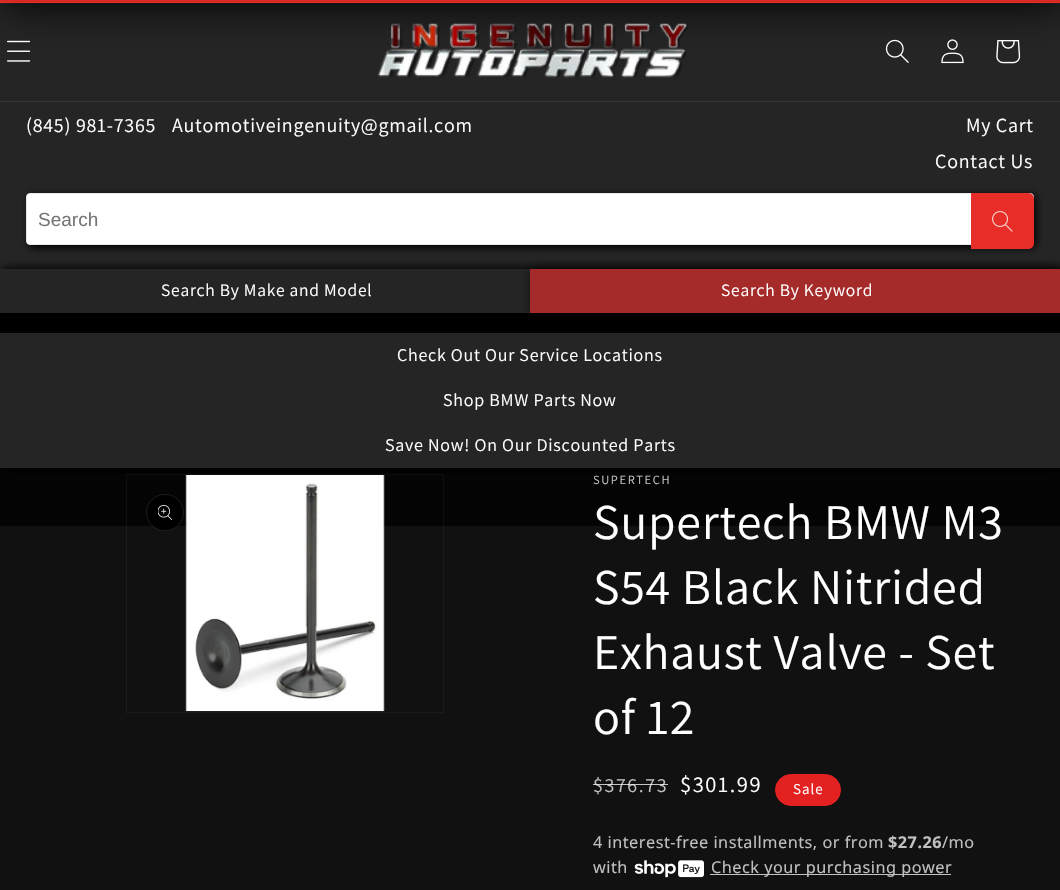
#include "include/core/SkBlurTypes.h"
#include "include/core/SkCanvas.h"
#include "include/core/SkData.h"
#include "include/core/SkFont.h"
#include "include/core/SkFontMgr.h"
#include "include/core/SkImage.h"
#include "include/core/SkMaskFilter.h"
#include "include/core/SkPaint.h"
#include "include/core/SkPathBuilder.h"
#include "include/core/SkTextBlob.h"
#include "include/effects/SkDashPathEffect.h"
#include "include/effects/SkGradientShader.h"
#include "include/utils/SkParsePath.h"

extern sk_sp<SkFontMgr> fontMgr;

void draw(SkCanvas* canvas) {
  SkPaint p;
  p.setAntiAlias(true);
  auto spacedText = [&](const char* s, float x, float y, const SkFont& font, const SkPaint& ink, float letter, float word) {
    std::vector<SkGlyphID> glyphs(font.countText(s, strlen(s), SkTextEncoding::kUTF8));
    std::vector<float> xs(glyphs.size());
    font.textToGlyphs(s, strlen(s), SkTextEncoding::kUTF8, glyphs);
    font.getXPos(glyphs, xs, x);
    float extra = 0;
    for (size_t i = 0; i < glyphs.size(); i++) {
      xs[i] += extra;
      extra += letter + word * (glyphs[i] == font.unicharToGlyph(' '));
    }
    canvas->drawTextBlob(SkTextBlob::MakeFromPosHGlyphs(glyphs, xs, y, font), 0, 0, ink);
  };
  canvas->clear(SkColorSetRGB(37, 37, 37));
  p.setColor(SK_ColorBLACK);
  p.setMaskFilter(SkMaskFilter::MakeBlur(kNormal_SkBlurStyle, 22));
  canvas->drawRect(SkRect::MakeLTRB(3, -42, 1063, 5), p);
  p.setMaskFilter(nullptr);
  p.setColor(SkColorSetRGB(230, 45, 39));
  canvas->drawRect(SkRect::MakeLTRB(0, 2, 1060, 3), p);
  p.setColor(SkColorSetRGB(212, 41, 36));
  canvas->drawRect(SkRect::MakeLTRB(0, 1, 1060, 2), p);
  p.setColor(SkColorSetRGB(216, 42, 37));
  canvas->drawRect(SkRect::MakeLTRB(0, 0, 1060, 1), p);
  p.setColor(SkColorSetRGB(54, 54, 54));
  canvas->drawRect(SkRect::MakeLTRB(0, 101, 1060, 102), p);
  canvas->drawImageRect(SkImages::DeferredFromEncodedData(SkData::MakeFromFileName("images/1.png")), SkRect::MakeLTRB(7, 40, 31, 62), SkSamplingOptions());
  canvas->drawImageRect(SkImages::DeferredFromEncodedData(SkData::MakeFromFileName("images/2.png")), SkRect::MakeLTRB(377, 23, 688, 78), SkSamplingOptions());
  canvas->drawImageRect(SkImages::DeferredFromEncodedData(SkData::MakeFromFileName("images/3.png")), SkRect::MakeLTRB(885, 39, 909, 63), SkSamplingOptions());
  canvas->drawImageRect(SkImages::DeferredFromEncodedData(SkData::MakeFromFileName("images/4.png")), SkRect::MakeLTRB(941, 39, 964, 64), SkSamplingOptions());
  canvas->drawImageRect(SkImages::DeferredFromEncodedData(SkData::MakeFromFileName("images/5.png")), SkRect::MakeLTRB(996, 40, 1021, 64), SkSamplingOptions());
  p.setColor(SK_ColorBLACK);
  p.setMaskFilter(SkMaskFilter::MakeBlur(kNormal_SkBlurStyle, 4));
  canvas->drawRoundRect(SkRect::MakeLTRB(29, 195, 1036, 248), 4, 4, p);
  p.setMaskFilter(nullptr);
  p.setColor(SK_ColorWHITE);
  canvas->drawRoundRect(SkRect::MakeLTRB(26.5f, 193.5f, 1033.5f, 244.5f), 3.5f, 3.5f, p);
  p.setStyle(SkPaint::kStroke_Style);
  p.setStrokeWidth(1);
  p.setColor(SkColorSetRGB(232, 233, 235));
  canvas->drawRoundRect(SkRect::MakeLTRB(26.5f, 193.5f, 1033.5f, 244.5f), 3.5f, 3.5f, p);
  p.setStyle(SkPaint::kFill_Style);
  p.setColor(SkColorSetRGB(230, 45, 39));
  canvas->drawPath(SkPathBuilder().moveTo(971, 193).lineTo(1028, 193).cubicTo(1031.5f, 193, 1034, 195.5f, 1034, 199).lineTo(1034, 243).cubicTo(1034, 246.5f, 1031.5f, 249, 1028, 249).lineTo(971, 249).close().detach(), p);
  canvas->drawImageRect(SkImages::DeferredFromEncodedData(SkData::MakeFromFileName("images/6.png")), SkRect::MakeLTRB(992, 211, 1013, 232), SkSamplingOptions());
  p.setColor(SK_ColorBLACK);
  p.setMaskFilter(SkMaskFilter::MakeBlur(kNormal_SkBlurStyle, 6));
  canvas->drawRect(SkRect::MakeLTRB(3, 271, 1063, 315), p);
  p.setMaskFilter(nullptr);
  p.setColor(SkColorSetRGB(37, 37, 37));
  canvas->drawRect(SkRect::MakeLTRB(0, 269, 530, 313), p);
  canvas->save();
  canvas->clipPath(SkPathBuilder(SkPathFillType::kEvenOdd).moveTo(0, 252).lineTo(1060, 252).lineTo(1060, 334).lineTo(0, 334).close().moveTo(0, 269).lineTo(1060, 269).lineTo(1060, 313).lineTo(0, 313).close().detach(), true);
  p.setColor(SK_ColorBLACK);
  p.setMaskFilter(SkMaskFilter::MakeBlur(kNormal_SkBlurStyle, 6));
  canvas->drawRect(SkRect::MakeLTRB(3, 271, 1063, 315), p);
  p.setMaskFilter(nullptr);
  canvas->restore();
  p.setMaskFilter(SkMaskFilter::MakeBlur(kNormal_SkBlurStyle, 6));
  canvas->drawRect(SkRect::MakeLTRB(533, 271, 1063, 315), p);
  p.setMaskFilter(nullptr);
  p.setColor(SkColorSetRGB(165, 42, 42));
  canvas->drawRect(SkRect::MakeLTRB(530, 269, 1060, 313), p);
  p.setColor(SkColorSetARGB(140, 0, 0, 0));
  canvas->drawRect(SkRect::MakeLTRB(0, 526, 1060, 890), p);
  p.setColor(SK_ColorBLACK);
  canvas->drawRect(SkRect::MakeLTRB(0, 313, 1060, 333), p);
  p.setColor(SkColorSetRGB(4, 4, 4));
  canvas->drawRect(SkRect::MakeLTRB(0, 468, 1060, 526), p);
  p.setColor(SK_ColorBLACK);
  p.setMaskFilter(SkMaskFilter::MakeBlur(kNormal_SkBlurStyle, 6));
  canvas->drawRect(SkRect::MakeLTRB(3, 335, 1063, 470), p);
  p.setMaskFilter(nullptr);
  p.setColor(SkColorSetRGB(37, 37, 37));
  canvas->drawRect(SkRect::MakeLTRB(0, 333, 1060, 468), p);
  canvas->save();
  canvas->clipPath(SkPathBuilder(SkPathFillType::kEvenOdd).moveTo(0, 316).lineTo(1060, 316).lineTo(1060, 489).lineTo(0, 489).close().moveTo(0, 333).lineTo(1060, 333).lineTo(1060, 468).lineTo(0, 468).close().detach(), true);
  p.setColor(SK_ColorBLACK);
  p.setMaskFilter(SkMaskFilter::MakeBlur(kNormal_SkBlurStyle, 6));
  canvas->drawRect(SkRect::MakeLTRB(3, 335, 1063, 470), p);
  p.setMaskFilter(nullptr);
  canvas->restore();
  p.setStyle(SkPaint::kStroke_Style);
  p.setColor(SkColorSetARGB(10, 255, 255, 255));
  canvas->drawRect(SkRect::MakeLTRB(126.5f, 474.5f, 443.5f, 712.5f), p);
  p.setStyle(SkPaint::kFill_Style);
  p.setColor(SK_ColorBLACK);
  canvas->drawRoundRect(SkRect::MakeLTRB(146, 494, 184, 531), 18.5f, 18.5f, p);
  p.setStyle(SkPaint::kStroke_Style);
  p.setColor(SkColorSetARGB(26, 255, 255, 255));
  canvas->drawRoundRect(SkRect::MakeLTRB(146.5f, 494.5f, 183.5f, 530.5f), 18, 18, p);
  canvas->drawImageRect(SkImages::DeferredFromEncodedData(SkData::MakeFromFileName("images/7.png")), SkRect::MakeLTRB(158, 505, 172, 520), SkSamplingOptions());
  canvas->drawImageRect(SkImages::DeferredFromEncodedData(SkData::MakeFromFileName("images/8.png")), SkRect::MakeLTRB(185, 475, 385, 712), SkSamplingOptions());
  p.setStyle(SkPaint::kFill_Style);
  p.setColor(SkColorSetRGB(226, 33, 32));
  canvas->drawRoundRect(SkRect::MakeLTRB(775.5f, 774.5f, 840.5f, 805.5f), 15.5f, 15.5f, p);
  p.setStyle(SkPaint::kStroke_Style);
  canvas->drawRoundRect(SkRect::MakeLTRB(775.5f, 774.5f, 840.5f, 805.5f), 15.5f, 15.5f, p);
  canvas->drawImageRect(SkImages::DeferredFromEncodedData(SkData::MakeFromFileName("images/9.png")), SkRect::MakeLTRB(634, 860, 704, 878), SkSamplingOptions());
  p.setStyle(SkPaint::kFill_Style);
  p.setColor(SkColorSetRGB(195, 195, 195));
  canvas->drawRect(SkRect::MakeLTRB(710, 874, 951, 875), p);
  SkFont font1(fontMgr->matchFamilyStyle("Assistant", SkFontStyle::Normal()), 20);
  font1.setSubpixel(true);
  p.setColor(SK_ColorWHITE);
  spacedText("(845) 981-7365", 26, 132, font1, p, 0.75f, 0);
  spacedText("Automotiveingenuity@gmail.com", 172, 132, font1, p, 0.75f, 0);
  spacedText("My Cart", 966, 132, font1, p, 0.75f, 0);
  spacedText("Contact Us", 935, 168, font1, p, 0.75f, 0);
  SkFont font2(fontMgr->matchFamilyStyle("Liberation Sans", SkFontStyle::Normal()), 19);
  font2.setSubpixel(true);
  p.setColor(SkColorSetRGB(117, 117, 117));
  canvas->drawString("Search", 38, 226, font2, p);
  SkFont font3(fontMgr->matchFamilyStyle("Assistant", SkFontStyle::Normal()), 17.5f);
  font3.setSubpixel(true);
  p.setColor(SK_ColorWHITE);
  spacedText("Search By Make and Model", 161, 296, font3, p, 0.75f, 0);
  spacedText("Search By Keyword", 721, 296, font3, p, 0.75f, 0);
  SkFont font4(fontMgr->matchFamilyStyle("Assistant", SkFontStyle::Normal()), 18);
  font4.setSubpixel(true);
  spacedText("Check Out Our Service Locations", 397, 361, font4, p, 0.75f, 0);
  spacedText("Shop BMW Parts Now", 443, 406, font4, p, 0.75f, 0);
  spacedText("Save Now! On Our Discounted Parts", 385, 451, font4, p, 0.75f, 0);
  SkFont font5(fontMgr->matchFamilyStyle("Assistant", SkFontStyle::Normal()), 12.5f);
  font5.setSubpixel(true);
  p.setColor(SkColorSetRGB(192, 192, 192));
  spacedText("SUPERTECH", 593, 484, font5, p, 1.6f, 0);
  SkFont font6(fontMgr->matchFamilyStyle("Assistant", SkFontStyle::Normal()), 50);
  font6.setSubpixel(true);
  p.setColor(SK_ColorWHITE);
  spacedText("Supertech BMW M3", 593, 539, font6, p, 0.75f, 0);
  spacedText("S54 Black Nitrided", 593, 604, font6, p, 0.75f, 0);
  spacedText("Exhaust Valve - Set", 593, 669, font6, p, 0.75f, 0);
  spacedText("of 12", 593, 734, font6, p, 0.75f, 0);
  p.setColor(SkColorSetRGB(192, 192, 192));
  spacedText("$376.73", 593, 792, font1, p, 1.6f, 0);
  p.setColor(SkColorSetARGB(191, 255, 255, 255));
  canvas->drawRect(SkRect::MakeLTRB(593, 784, 668, 785), p);
  SkFont font7(fontMgr->matchFamilyStyle("Assistant", SkFontStyle::Normal()), 22.5f);
  font7.setSubpixel(true);
  p.setColor(SK_ColorWHITE);
  spacedText("$301.99", 680, 792, font7, p, 1.6f, 0);
  SkFont font8(fontMgr->matchFamilyStyle("Assistant", SkFontStyle::Normal()), 15);
  font8.setSubpixel(true);
  spacedText("Sale", 793, 794, font8, p, 1, 0);
  SkFont font9(fontMgr->matchFamilyStyle("Noto Sans", SkFontStyle::Normal()), 16.25f);
  font9.setSubpixel(true);
  p.setColor(SkColorSetRGB(192, 192, 192));
  spacedText("4 interest-free installments, or from", 593, 848, font9, p, 0.5f, 0);
  SkFont font10(fontMgr->matchFamilyStyle("Noto Sans", SkFontStyle::Bold()), 16.25f);
  font10.setSubpixel(true);
  spacedText("$27.26", 888, 848, font10, p, 0.5f, 0);
  spacedText("/mo", 942, 848, font9, p, 0.5f, 0);
  spacedText("with", 593, 873, font9, p, 0.5f, 0);
  spacedText("Check your purchasing power", 711, 873, font9, p, 0.5f, 0);
}
